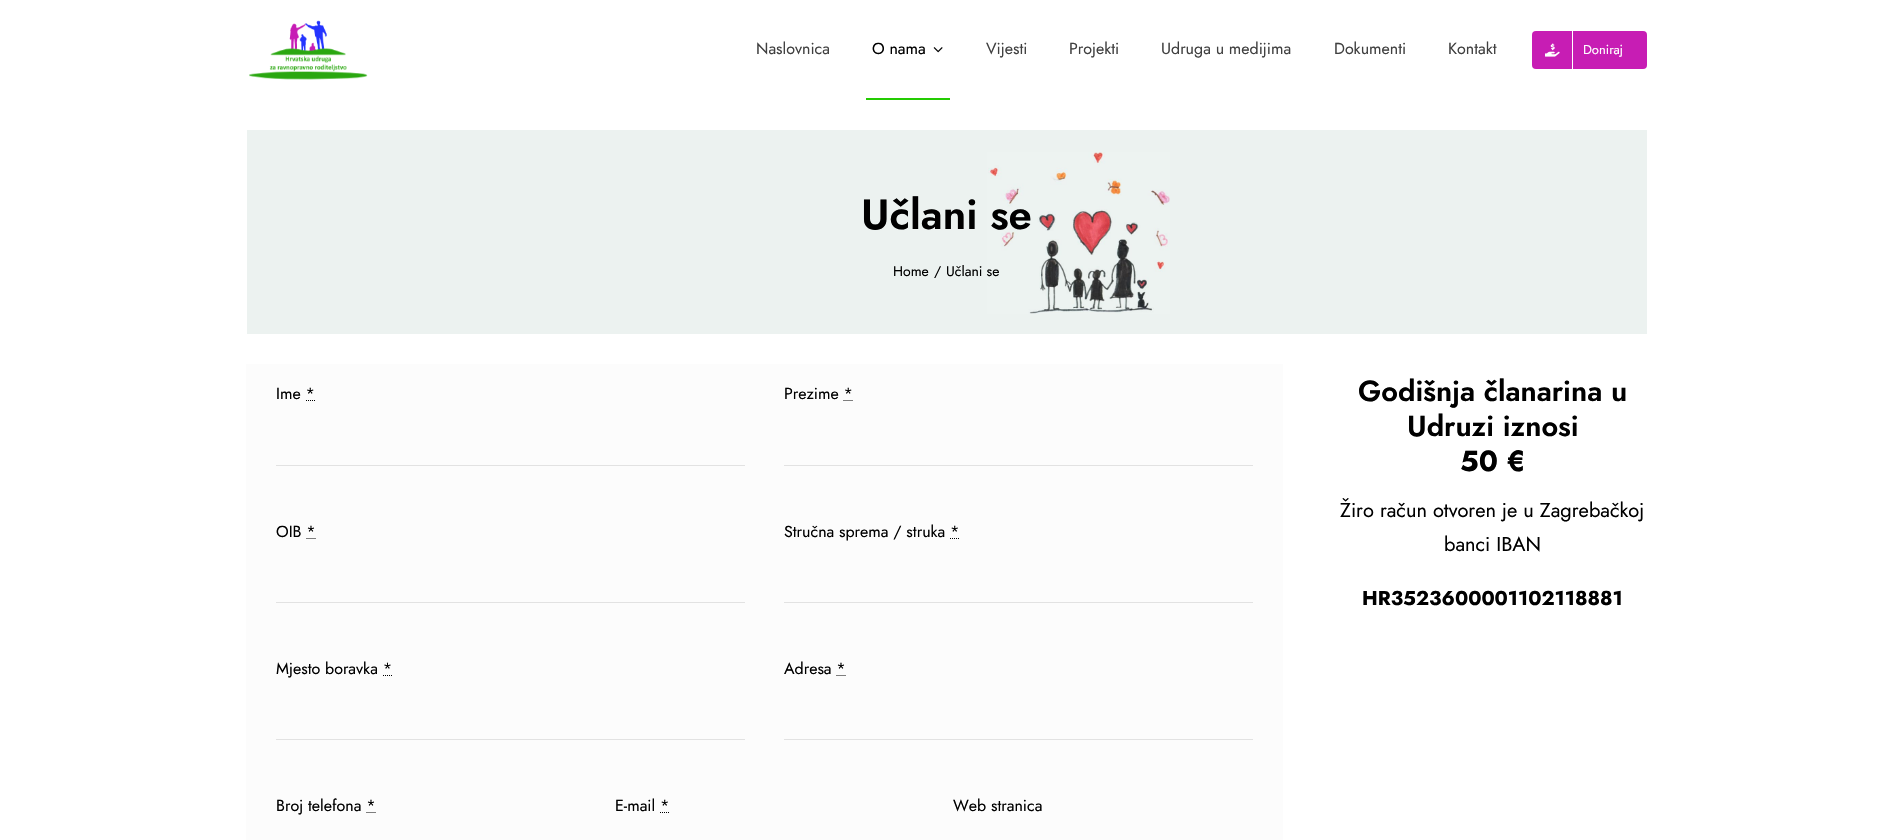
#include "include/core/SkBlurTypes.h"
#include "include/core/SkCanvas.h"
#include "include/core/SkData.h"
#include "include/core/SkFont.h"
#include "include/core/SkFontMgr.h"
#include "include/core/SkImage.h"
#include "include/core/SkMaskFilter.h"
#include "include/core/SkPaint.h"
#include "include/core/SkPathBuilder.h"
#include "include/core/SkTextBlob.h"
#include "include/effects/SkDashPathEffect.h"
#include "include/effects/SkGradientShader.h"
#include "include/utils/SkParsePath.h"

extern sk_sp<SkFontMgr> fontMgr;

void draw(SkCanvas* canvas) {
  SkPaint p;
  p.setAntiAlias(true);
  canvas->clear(SK_ColorWHITE);
  canvas->drawImageRect(SkImages::DeferredFromEncodedData(SkData::MakeFromFileName("images/1.png")), SkRect::MakeLTRB(249, 20, 368, 80), SkSamplingOptions());
  canvas->drawImageRect(SkImages::DeferredFromEncodedData(SkData::MakeFromFileName("images/2.png")), SkRect::MakeLTRB(933, 47, 943, 53), SkSamplingOptions());
  p.setColor(SkColorSetRGB(36, 203, 2));
  canvas->drawRect(SkRect::MakeLTRB(866, 98, 950, 100), p);
  p.setColor(SkColorSetRGB(199, 29, 180));
  canvas->drawRoundRect(SkRect::MakeLTRB(1532, 31, 1647, 69), 4, 4, p);
  p.setColor(SK_ColorWHITE);
  canvas->drawRect(SkRect::MakeLTRB(1572, 31, 1573, 69), p);
  canvas->drawImageRect(SkImages::DeferredFromEncodedData(SkData::MakeFromFileName("images/3.png")), SkRect::MakeLTRB(1545, 43, 1560, 57), SkSamplingOptions());
  p.setColor(SkColorSetRGB(236, 242, 240));
  canvas->drawRect(SkRect::MakeLTRB(247, 130, 1647, 334), p);
  canvas->drawImageRect(SkImages::DeferredFromEncodedData(SkData::MakeFromFileName("images/4.png")), SkRect::MakeLTRB(987, 152, 1170, 314), SkSamplingOptions());
  p.setColor(SkColorSetRGB(252, 252, 252));
  canvas->drawRect(SkRect::MakeLTRB(246, 364, 1283, 840), p);
  p.setStyle(SkPaint::kStroke_Style);
  p.setStrokeWidth(1);
  p.setColor(SK_ColorBLACK);
  p.setPathEffect(SkDashPathEffect::Make({{1, 1}}, 0));
  canvas->drawPath(SkPathBuilder().moveTo(306, 400.5f).lineTo(315.5f, 400.5f).detach(), p);
  p.setPathEffect(nullptr);
  p.setStyle(SkPaint::kFill_Style);
  p.setColor(SkColorSetRGB(226, 226, 226));
  canvas->drawRect(SkRect::MakeLTRB(276, 465, 745, 466), p);
  p.setStyle(SkPaint::kStroke_Style);
  p.setColor(SK_ColorBLACK);
  p.setPathEffect(SkDashPathEffect::Make({{1, 1}}, 0));
  canvas->drawPath(SkPathBuilder().moveTo(843.5f, 400.5f).lineTo(853, 400.5f).detach(), p);
  p.setPathEffect(nullptr);
  p.setStyle(SkPaint::kFill_Style);
  p.setColor(SkColorSetRGB(226, 226, 226));
  canvas->drawRect(SkRect::MakeLTRB(784, 465, 1253, 466), p);
  p.setStyle(SkPaint::kStroke_Style);
  p.setColor(SK_ColorBLACK);
  p.setPathEffect(SkDashPathEffect::Make({{1, 1}}, 0));
  canvas->drawPath(SkPathBuilder().moveTo(306.5f, 538.5f).lineTo(316, 538.5f).detach(), p);
  p.setPathEffect(nullptr);
  p.setStyle(SkPaint::kFill_Style);
  p.setColor(SkColorSetRGB(226, 226, 226));
  canvas->drawRect(SkRect::MakeLTRB(276, 602, 745, 603), p);
  p.setStyle(SkPaint::kStroke_Style);
  p.setColor(SK_ColorBLACK);
  p.setPathEffect(SkDashPathEffect::Make({{1, 1}}, 0));
  canvas->drawPath(SkPathBuilder().moveTo(950, 538.5f).lineTo(959.5f, 538.5f).detach(), p);
  p.setPathEffect(nullptr);
  p.setStyle(SkPaint::kFill_Style);
  p.setColor(SkColorSetRGB(226, 226, 226));
  canvas->drawRect(SkRect::MakeLTRB(784, 602, 1253, 603), p);
  p.setStyle(SkPaint::kStroke_Style);
  p.setColor(SK_ColorBLACK);
  p.setPathEffect(SkDashPathEffect::Make({{1, 1}}, 0));
  canvas->drawPath(SkPathBuilder().moveTo(383, 675.5f).lineTo(392.5f, 675.5f).detach(), p);
  p.setPathEffect(nullptr);
  p.setStyle(SkPaint::kFill_Style);
  p.setColor(SkColorSetRGB(226, 226, 226));
  canvas->drawRect(SkRect::MakeLTRB(276, 739, 745, 740), p);
  p.setStyle(SkPaint::kStroke_Style);
  p.setColor(SK_ColorBLACK);
  p.setPathEffect(SkDashPathEffect::Make({{1, 1}}, 0));
  canvas->drawPath(SkPathBuilder().moveTo(836.5f, 675.5f).lineTo(846, 675.5f).detach(), p);
  p.setPathEffect(nullptr);
  p.setStyle(SkPaint::kFill_Style);
  p.setColor(SkColorSetRGB(226, 226, 226));
  canvas->drawRect(SkRect::MakeLTRB(784, 739, 1253, 740), p);
  p.setStyle(SkPaint::kStroke_Style);
  p.setColor(SK_ColorBLACK);
  p.setPathEffect(SkDashPathEffect::Make({{1, 1}}, 0));
  canvas->drawPath(SkPathBuilder().moveTo(366.5f, 812.5f).lineTo(376, 812.5f).detach(), p);
  p.setPathEffect(nullptr);
  p.setPathEffect(SkDashPathEffect::Make({{1, 1}}, 0));
  canvas->drawPath(SkPathBuilder().moveTo(660, 812.5f).lineTo(669.5f, 812.5f).detach(), p);
  p.setPathEffect(nullptr);
  SkFont font1(fontMgr->matchFamilyStyle("Jost", SkFontStyle::Normal()), 16);
  font1.setSubpixel(true);
  p.setStyle(SkPaint::kFill_Style);
  p.setColor(SkColorSetRGB(64, 64, 64));
  canvas->drawString("Naslovnica", 756, 54, font1, p);
  p.setColor(SK_ColorBLACK);
  canvas->drawString("O nama", 872, 54, font1, p);
  p.setColor(SkColorSetRGB(64, 64, 64));
  canvas->drawString("Vijesti", 986, 54, font1, p);
  canvas->drawString("Projekti", 1069, 54, font1, p);
  canvas->drawString("Udruga u medijima", 1161, 54, font1, p);
  canvas->drawString("Dokumenti", 1334, 54, font1, p);
  canvas->drawString("Kontakt", 1448, 54, font1, p);
  SkFont font2(fontMgr->matchFamilyStyle("Jost", SkFontStyle::Normal()), 13);
  font2.setSubpixel(true);
  p.setColor(SK_ColorWHITE);
  canvas->drawString("Doniraj", 1583, 54, font2, p);
  SkFont font3(fontMgr->matchFamilyStyle("Jost", SkFontStyle(600, SkFontStyle::kNormal_Width, SkFontStyle::kUpright_Slant)), 42);
  font3.setSubpixel(true);
  p.setColor(SK_ColorBLACK);
  canvas->drawString("Učlani se", 861, 229, font3, p);
  SkFont font4(fontMgr->matchFamilyStyle("Jost", SkFontStyle::Normal()), 14);
  font4.setSubpixel(true);
  canvas->drawString("Home", 893, 276, font4, p);
  canvas->drawString("/", 934, 276, font4, p);
  canvas->drawString("Učlani se", 946, 276, font4, p);
  canvas->drawString("Ime *", 276, 399, font1, p);
  canvas->drawString("Prezime *", 784, 399, font1, p);
  canvas->drawString("OIB *", 276, 537, font1, p);
  canvas->drawString("Stručna sprema / struka *", 784, 537, font1, p);
  canvas->drawString("Mjesto boravka *", 276, 674, font1, p);
  canvas->drawString("Adresa *", 784, 674, font1, p);
  canvas->drawString("Broj telefona *", 276, 811, font1, p);
  canvas->drawString("E-mail *", 615, 811, font1, p);
  canvas->drawString("Web stranica", 953, 811, font1, p);
  SkFont font5(fontMgr->matchFamilyStyle("Jost", SkFontStyle(600, SkFontStyle::kNormal_Width, SkFontStyle::kUpright_Slant)), 29);
  font5.setSubpixel(true);
  canvas->drawString("Godišnja članarina u", 1358, 401, font5, p);
  canvas->drawString("Udruzi iznosi", 1407, 436, font5, p);
  SkFont font6(fontMgr->matchFamilyStyle("Jost", SkFontStyle::Bold()), 29);
  font6.setSubpixel(true);
  canvas->drawString("50 €", 1460, 471, font6, p);
  SkFont font7(fontMgr->matchFamilyStyle("Jost", SkFontStyle::Normal()), 20);
  font7.setSubpixel(true);
  canvas->drawString("Žiro račun otvoren je u Zagrebačkoj", 1340, 517, font7, p);
  canvas->drawString("banci IBAN", 1444, 551, font7, p);
  SkFont font8(fontMgr->matchFamilyStyle("Jost", SkFontStyle::Bold()), 20);
  font8.setSubpixel(true);
  canvas->drawString("HR3523600001102118881", 1362, 605, font8, p);
}
